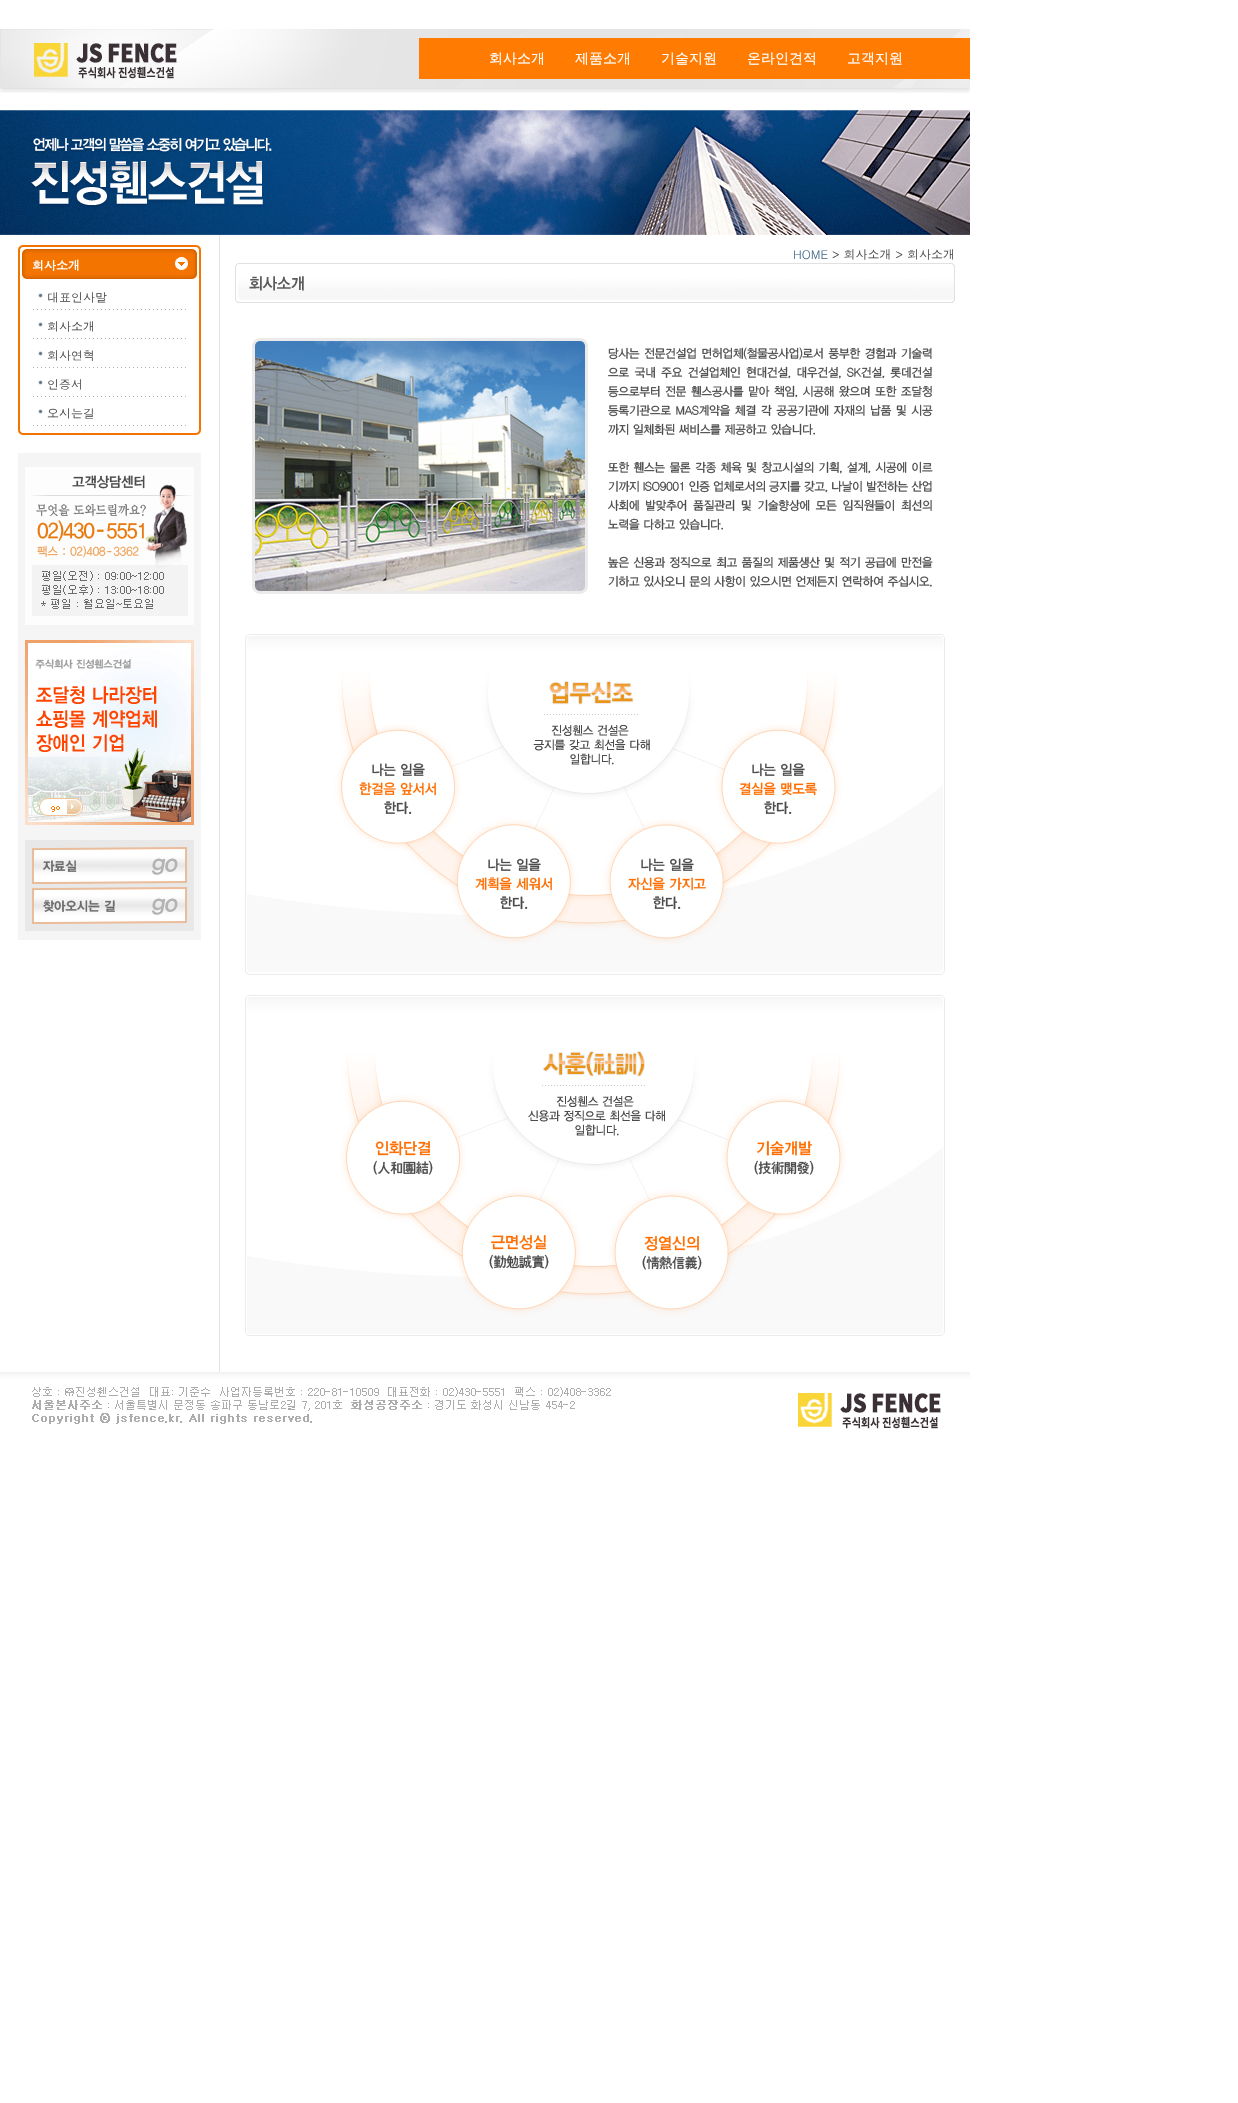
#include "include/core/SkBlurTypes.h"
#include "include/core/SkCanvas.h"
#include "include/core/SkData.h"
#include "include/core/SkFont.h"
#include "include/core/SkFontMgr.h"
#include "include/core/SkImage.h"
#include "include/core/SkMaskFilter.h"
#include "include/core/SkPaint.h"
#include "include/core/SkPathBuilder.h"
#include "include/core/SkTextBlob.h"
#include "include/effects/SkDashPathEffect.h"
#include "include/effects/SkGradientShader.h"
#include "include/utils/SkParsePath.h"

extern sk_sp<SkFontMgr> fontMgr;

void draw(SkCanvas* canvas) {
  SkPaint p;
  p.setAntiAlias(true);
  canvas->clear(SK_ColorWHITE);
  canvas->drawImageRect(SkImages::DeferredFromEncodedData(SkData::MakeFromFileName("images/1.png")), SkRect::MakeLTRB(0, 29, 25, 88), SkSamplingOptions());
  canvas->drawImageRect(SkImages::DeferredFromEncodedData(SkData::MakeFromFileName("images/2.png")), SkRect::MakeLTRB(25, 29, 192, 88), SkSamplingOptions());
  canvas->drawImageRect(SkImages::DeferredFromEncodedData(SkData::MakeFromFileName("images/3.png")), SkRect::MakeLTRB(192, 29, 419, 88), SkSamplingOptions());
  canvas->drawImageRect(SkImages::DeferredFromEncodedData(SkData::MakeFromFileName("images/4.png")), SkRect::MakeLTRB(419, 29, 970, 88), SkSamplingOptions());
  canvas->drawImageRect(SkImages::DeferredFromEncodedData(SkData::MakeFromFileName("images/5.png")), SkRect::MakeLTRB(0, 88, 970, 93), SkSamplingOptions());
  canvas->drawImageRect(SkImages::DeferredFromEncodedData(SkData::MakeFromFileName("images/6.png")), SkRect::MakeLTRB(0, 110, 970, 235), SkSamplingOptions());
  p.setColor(SkColorSetRGB(229, 229, 229));
  canvas->drawRect(SkRect::MakeLTRB(219, 235, 220, 1372), p);
  canvas->drawImageRect(SkImages::DeferredFromEncodedData(SkData::MakeFromFileName("images/7.png")), SkRect::MakeLTRB(235, 263, 955, 303), SkSamplingOptions());
  canvas->drawImageRect(SkImages::DeferredFromEncodedData(SkData::MakeFromFileName("images/8.png")), SkRect::MakeLTRB(245, 338, 945, 1336), SkSamplingOptions());
  canvas->drawImageRect(SkImages::DeferredFromEncodedData(SkData::MakeFromFileName("images/9.png")), SkRect::MakeLTRB(18, 245, 26, 281), SkSamplingOptions());
  canvas->drawImageRect(SkImages::DeferredFromEncodedData(SkData::MakeFromFileName("images/10.png")), SkRect::MakeLTRB(26, 245, 173, 279), SkSamplingOptions());
  canvas->drawImageRect(SkImages::DeferredFromEncodedData(SkData::MakeFromFileName("images/11.png")), SkRect::MakeLTRB(173, 245, 201, 281), SkSamplingOptions());
  p.setColor(SkColorSetRGB(244, 116, 0));
  canvas->drawRect(SkRect::MakeLTRB(18, 281, 20, 309), p);
  canvas->drawImageRect(SkImages::DeferredFromEncodedData(SkData::MakeFromFileName("images/12.png")), SkRect::MakeLTRB(38, 293, 43, 298), SkSamplingOptions());
  canvas->drawRect(SkRect::MakeLTRB(199, 281, 201, 309), p);
  canvas->drawImageRect(SkImages::DeferredFromEncodedData(SkData::MakeFromFileName("images/13.png")), SkRect::MakeLTRB(33, 309, 186, 310), SkSamplingOptions());
  canvas->drawRect(SkRect::MakeLTRB(18, 309, 20, 338), p);
  canvas->drawImageRect(SkImages::DeferredFromEncodedData(SkData::MakeFromFileName("images/12.png")), SkRect::MakeLTRB(38, 322, 43, 327), SkSamplingOptions());
  canvas->drawRect(SkRect::MakeLTRB(199, 309, 201, 338), p);
  canvas->drawImageRect(SkImages::DeferredFromEncodedData(SkData::MakeFromFileName("images/13.png")), SkRect::MakeLTRB(33, 338, 186, 339), SkSamplingOptions());
  canvas->drawRect(SkRect::MakeLTRB(18, 338, 20, 367), p);
  canvas->drawImageRect(SkImages::DeferredFromEncodedData(SkData::MakeFromFileName("images/12.png")), SkRect::MakeLTRB(38, 351, 43, 356), SkSamplingOptions());
  canvas->drawRect(SkRect::MakeLTRB(199, 338, 201, 367), p);
  canvas->drawImageRect(SkImages::DeferredFromEncodedData(SkData::MakeFromFileName("images/13.png")), SkRect::MakeLTRB(33, 367, 186, 368), SkSamplingOptions());
  canvas->drawRect(SkRect::MakeLTRB(18, 367, 20, 396), p);
  canvas->drawImageRect(SkImages::DeferredFromEncodedData(SkData::MakeFromFileName("images/12.png")), SkRect::MakeLTRB(38, 380, 43, 385), SkSamplingOptions());
  canvas->drawRect(SkRect::MakeLTRB(199, 367, 201, 396), p);
  canvas->drawImageRect(SkImages::DeferredFromEncodedData(SkData::MakeFromFileName("images/13.png")), SkRect::MakeLTRB(33, 396, 186, 397), SkSamplingOptions());
  canvas->drawRect(SkRect::MakeLTRB(18, 396, 20, 426), p);
  canvas->drawImageRect(SkImages::DeferredFromEncodedData(SkData::MakeFromFileName("images/12.png")), SkRect::MakeLTRB(38, 409, 43, 414), SkSamplingOptions());
  canvas->drawRect(SkRect::MakeLTRB(199, 396, 201, 426), p);
  canvas->drawImageRect(SkImages::DeferredFromEncodedData(SkData::MakeFromFileName("images/13.png")), SkRect::MakeLTRB(33, 425, 186, 426), SkSamplingOptions());
  canvas->drawImageRect(SkImages::DeferredFromEncodedData(SkData::MakeFromFileName("images/14.png")), SkRect::MakeLTRB(18, 426, 23, 435), SkSamplingOptions());
  canvas->drawRect(SkRect::MakeLTRB(23, 433, 196, 435), p);
  canvas->drawImageRect(SkImages::DeferredFromEncodedData(SkData::MakeFromFileName("images/15.png")), SkRect::MakeLTRB(196, 426, 201, 435), SkSamplingOptions());
  canvas->drawImageRect(SkImages::DeferredFromEncodedData(SkData::MakeFromFileName("images/16.png")), SkRect::MakeLTRB(18, 453, 201, 633), SkSamplingOptions());
  canvas->drawImageRect(SkImages::DeferredFromEncodedData(SkData::MakeFromFileName("images/17.png")), SkRect::MakeLTRB(18, 633, 201, 833), SkSamplingOptions());
  canvas->drawImageRect(SkImages::DeferredFromEncodedData(SkData::MakeFromFileName("images/18.png")), SkRect::MakeLTRB(18, 833, 201, 940), SkSamplingOptions());
  canvas->drawImageRect(SkImages::DeferredFromEncodedData(SkData::MakeFromFileName("images/19.png")), SkRect::MakeLTRB(0, 1372, 970, 1429), SkSamplingOptions());
  SkFont font1(fontMgr->matchFamilyStyle("WenQuanYi Zen Hei", SkFontStyle(500, SkFontStyle::kNormal_Width, SkFontStyle::kUpright_Slant)), 14);
  font1.setSubpixel(true);
  p.setColor(SK_ColorWHITE);
  canvas->drawString("회사소개", 489, 63, font1, p);
  canvas->drawString("제품소개", 575, 63, font1, p);
  canvas->drawString("기술지원", 661, 63, font1, p);
  canvas->drawString("온라인견적", 747, 63, font1, p);
  canvas->drawString("고객지원", 847, 63, font1, p);
  SkFont font2(fontMgr->matchFamilyStyle("Dotum", SkFontStyle::Normal()), 12);
  font2.setSubpixel(true);
  p.setColor(SkColorSetRGB(70, 108, 138));
  canvas->drawString("HOME", 793, 259, font2, p);
  p.setColor(SkColorSetRGB(75, 75, 75));
  canvas->drawString("> 회사소개 > 회사소개", 832, 259, font2, p);
  SkFont font3(fontMgr->matchFamilyStyle("Dotum", SkFontStyle::Bold()), 12);
  font3.setSubpixel(true);
  p.setColor(SK_ColorWHITE);
  canvas->drawString("회사소개", 32, 270, font3, p);
  p.setColor(SkColorSetRGB(75, 75, 75));
  canvas->drawString("대표인사말", 47, 302, font2, p);
  canvas->drawString("회사소개", 47, 331, font2, p);
  canvas->drawString("회사연혁", 47, 360, font2, p);
  canvas->drawString("인증서", 47, 389, font2, p);
  canvas->drawString("오시는길", 47, 418, font2, p);
}
